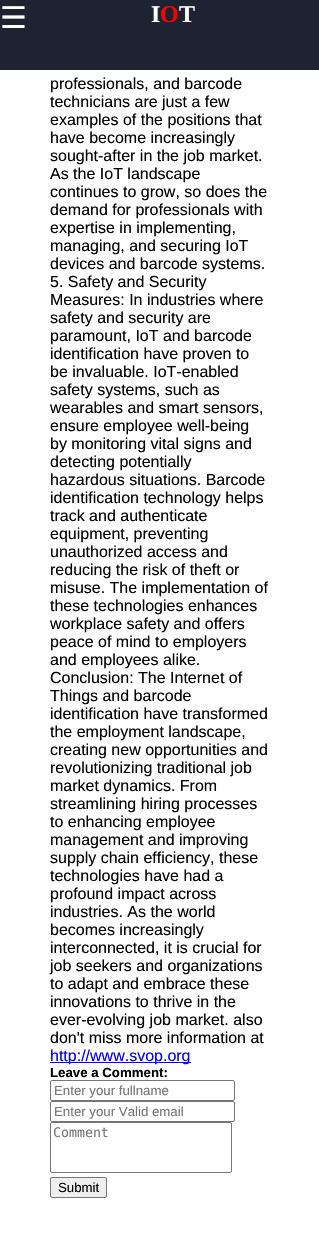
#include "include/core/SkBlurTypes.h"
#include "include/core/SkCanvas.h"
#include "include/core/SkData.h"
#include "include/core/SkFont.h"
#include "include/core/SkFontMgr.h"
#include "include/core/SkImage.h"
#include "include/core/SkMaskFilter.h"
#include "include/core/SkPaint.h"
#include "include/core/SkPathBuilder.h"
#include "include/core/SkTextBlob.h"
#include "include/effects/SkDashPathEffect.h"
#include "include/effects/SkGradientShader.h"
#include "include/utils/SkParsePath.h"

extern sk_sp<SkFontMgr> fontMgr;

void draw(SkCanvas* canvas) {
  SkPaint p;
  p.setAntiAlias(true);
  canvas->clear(SK_ColorWHITE);
  p.setColor(SkColorSetRGB(29, 35, 48));
  canvas->drawRect(SkRect::MakeLTRB(0, 0, 319, 70), p);
  p.setColor(SkColorSetRGB(0, 0, 238));
  canvas->drawRect(SkRect::MakeLTRB(50, 1062, 191, 1063), p);
  p.setStyle(SkPaint::kStroke_Style);
  p.setStrokeWidth(1);
  p.setColor(SkColorSetRGB(118, 118, 118));
  canvas->drawRoundRect(SkRect::MakeLTRB(50.5f, 1080.5f, 234.5f, 1100.5f), 1.5f, 1.5f, p);
  canvas->drawRoundRect(SkRect::MakeLTRB(50.5f, 1101.5f, 234.5f, 1121.5f), 1.5f, 1.5f, p);
  canvas->drawRoundRect(SkRect::MakeLTRB(50.5f, 1122.5f, 231.5f, 1172.5f), 1.5f, 1.5f, p);
  p.setStyle(SkPaint::kFill_Style);
  p.setColor(SkColorSetRGB(239, 239, 239));
  canvas->drawRoundRect(SkRect::MakeLTRB(50.5f, 1177.5f, 106.5f, 1197.5f), 1.5f, 1.5f, p);
  p.setStyle(SkPaint::kStroke_Style);
  p.setColor(SkColorSetRGB(118, 118, 118));
  canvas->drawRoundRect(SkRect::MakeLTRB(50.5f, 1177.5f, 106.5f, 1197.5f), 1.5f, 1.5f, p);
  SkFont font1(fontMgr->matchFamilyStyle("DejaVu Sans", SkFontStyle::Normal()), 30);
  font1.setSubpixel(true);
  p.setStyle(SkPaint::kFill_Style);
  p.setColor(SK_ColorWHITE);
  canvas->drawString("☰", 0, 28, font1, p);
  SkFont font2(fontMgr->matchFamilyStyle("Liberation Serif", SkFontStyle::Bold()), 24);
  font2.setSubpixel(true);
  canvas->drawString("I", 151, 22, font2, p);
  p.setColor(SkColorSetRGB(255, 0, 0));
  canvas->drawString("O", 160, 22, font2, p);
  p.setColor(SK_ColorWHITE);
  canvas->drawString("T", 179, 22, font2, p);
  SkFont font3(fontMgr->matchFamilyStyle("Liberation Sans", SkFontStyle::Normal()), 16);
  font3.setSubpixel(true);
  p.setColor(SK_ColorBLACK);
  canvas->drawString("professionals, and barcode", 50, 89, font3, p);
  canvas->drawString("technicians are just a few", 50, 107, font3, p);
  canvas->drawString("examples of the positions that", 50, 125, font3, p);
  canvas->drawString("have become increasingly", 50, 143, font3, p);
  canvas->drawString("sought-after in the job market.", 50, 161, font3, p);
  canvas->drawString("As the IoT landscape", 50, 179, font3, p);
  canvas->drawString("continues to grow, so does the", 50, 197, font3, p);
  canvas->drawString("demand for professionals with", 50, 215, font3, p);
  canvas->drawString("expertise in implementing,", 50, 233, font3, p);
  canvas->drawString("managing, and securing IoT", 50, 251, font3, p);
  canvas->drawString("devices and barcode systems.", 50, 269, font3, p);
  canvas->drawString("5. Safety and Security", 50, 287, font3, p);
  canvas->drawString("Measures: In industries where", 50, 305, font3, p);
  canvas->drawString("safety and security are", 50, 323, font3, p);
  canvas->drawString("paramount, IoT and barcode", 50, 341, font3, p);
  canvas->drawString("identification have proven to", 50, 359, font3, p);
  canvas->drawString("be invaluable. IoT-enabled", 50, 377, font3, p);
  canvas->drawString("safety systems, such as", 50, 395, font3, p);
  canvas->drawString("wearables and smart sensors,", 50, 413, font3, p);
  canvas->drawString("ensure employee well-being", 50, 431, font3, p);
  canvas->drawString("by monitoring vital signs and", 50, 449, font3, p);
  canvas->drawString("detecting potentially", 50, 467, font3, p);
  canvas->drawString("hazardous situations. Barcode", 50, 485, font3, p);
  canvas->drawString("identification technology helps", 50, 503, font3, p);
  canvas->drawString("track and authenticate", 50, 521, font3, p);
  canvas->drawString("equipment, preventing", 50, 539, font3, p);
  canvas->drawString("unauthorized access and", 50, 557, font3, p);
  canvas->drawString("reducing the risk of theft or", 50, 575, font3, p);
  canvas->drawString("misuse. The implementation of", 50, 593, font3, p);
  canvas->drawString("these technologies enhances", 50, 611, font3, p);
  canvas->drawString("workplace safety and offers", 50, 629, font3, p);
  canvas->drawString("peace of mind to employers", 50, 647, font3, p);
  canvas->drawString("and employees alike.", 50, 665, font3, p);
  canvas->drawString("Conclusion: The Internet of", 50, 683, font3, p);
  canvas->drawString("Things and barcode", 50, 701, font3, p);
  canvas->drawString("identification have transformed", 50, 719, font3, p);
  canvas->drawString("the employment landscape,", 50, 737, font3, p);
  canvas->drawString("creating new opportunities and", 50, 755, font3, p);
  canvas->drawString("revolutionizing traditional job", 50, 773, font3, p);
  canvas->drawString("market dynamics. From", 50, 791, font3, p);
  canvas->drawString("streamlining hiring processes", 50, 809, font3, p);
  canvas->drawString("to enhancing employee", 50, 827, font3, p);
  canvas->drawString("management and improving", 50, 845, font3, p);
  canvas->drawString("supply chain efficiency, these", 50, 863, font3, p);
  canvas->drawString("technologies have had a", 50, 881, font3, p);
  canvas->drawString("profound impact across", 50, 899, font3, p);
  canvas->drawString("industries. As the world", 50, 917, font3, p);
  canvas->drawString("becomes increasingly", 50, 935, font3, p);
  canvas->drawString("interconnected, it is crucial for", 50, 953, font3, p);
  canvas->drawString("job seekers and organizations", 50, 971, font3, p);
  canvas->drawString("to adapt and embrace these", 50, 989, font3, p);
  canvas->drawString("innovations to thrive in the", 50, 1007, font3, p);
  canvas->drawString("ever-evolving job market. also", 50, 1025, font3, p);
  canvas->drawString("don't miss more information at", 50, 1043, font3, p);
  p.setColor(SkColorSetRGB(0, 0, 238));
  canvas->drawString("http://www.svop.org", 50, 1061, font3, p);
  SkFont font4(fontMgr->matchFamilyStyle("Liberation Sans", SkFontStyle::Bold()), 13.25f);
  font4.setSubpixel(true);
  p.setColor(SK_ColorBLACK);
  canvas->drawString("Leave a Comment:", 50, 1077, font4, p);
  SkFont font5(fontMgr->matchFamilyStyle("Liberation Sans", SkFontStyle::Normal()), 13.25f);
  font5.setSubpixel(true);
  p.setColor(SkColorSetRGB(117, 117, 117));
  canvas->drawString("Enter your fullname", 54, 1095, font5, p);
  canvas->drawString("Enter your Valid email", 54, 1116, font5, p);
  SkFont font6(fontMgr->matchFamilyStyle("DejaVu Sans Mono", SkFontStyle::Normal()), 13.25f);
  font6.setSubpixel(true);
  canvas->drawString("Comment", 53, 1137, font6, p);
  p.setColor(SK_ColorBLACK);
  canvas->drawString("Submit", 58, 1192, font5, p);
}
